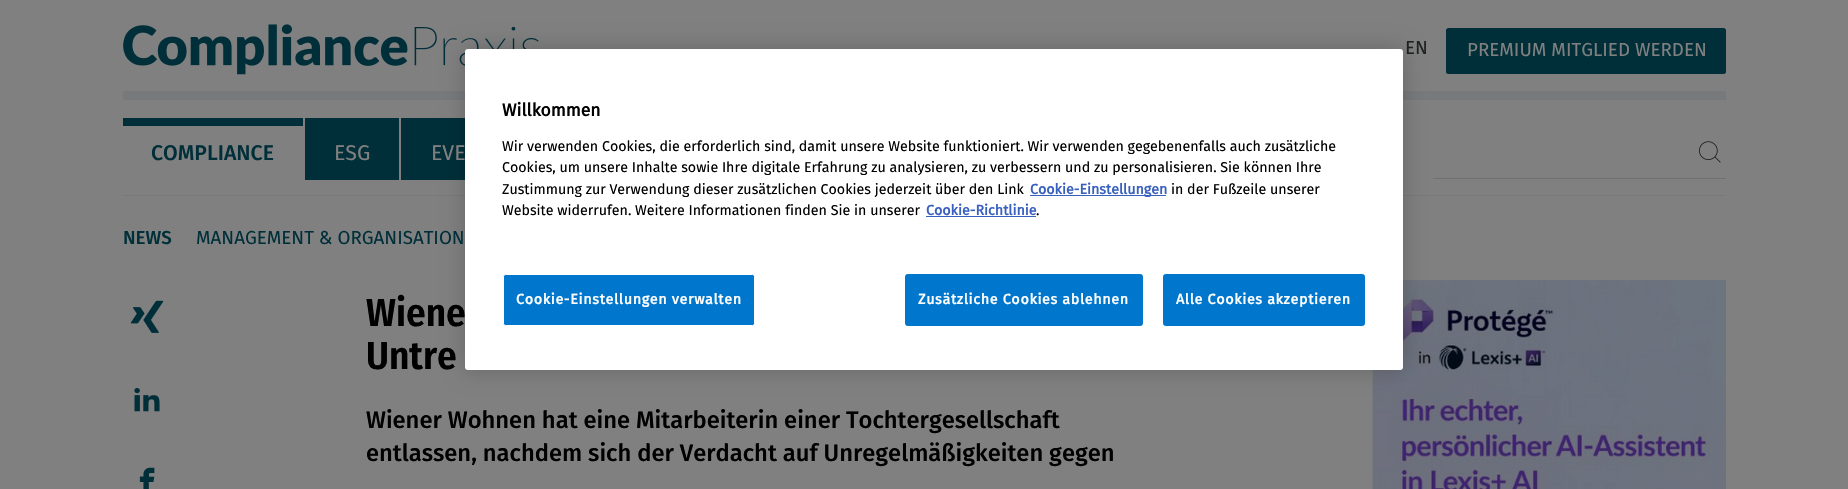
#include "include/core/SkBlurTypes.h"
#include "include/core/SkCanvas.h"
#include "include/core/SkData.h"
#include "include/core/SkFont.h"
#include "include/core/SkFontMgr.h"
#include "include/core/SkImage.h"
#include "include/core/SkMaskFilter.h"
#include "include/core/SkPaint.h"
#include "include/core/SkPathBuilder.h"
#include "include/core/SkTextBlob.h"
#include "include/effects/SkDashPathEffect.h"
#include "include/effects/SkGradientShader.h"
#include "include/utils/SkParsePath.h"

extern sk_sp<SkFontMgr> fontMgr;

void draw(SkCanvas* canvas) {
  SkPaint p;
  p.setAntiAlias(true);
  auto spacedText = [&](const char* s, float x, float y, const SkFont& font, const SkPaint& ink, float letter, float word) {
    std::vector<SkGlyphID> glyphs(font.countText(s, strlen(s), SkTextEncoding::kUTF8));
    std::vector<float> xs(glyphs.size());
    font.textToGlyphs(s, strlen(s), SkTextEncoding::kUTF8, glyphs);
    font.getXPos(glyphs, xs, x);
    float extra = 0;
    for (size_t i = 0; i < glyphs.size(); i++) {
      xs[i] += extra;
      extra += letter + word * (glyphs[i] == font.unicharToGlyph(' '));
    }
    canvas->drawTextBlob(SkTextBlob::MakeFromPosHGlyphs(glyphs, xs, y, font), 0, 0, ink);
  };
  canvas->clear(SkColorSetRGB(128, 128, 128));
  p.setColor(SkColorSetRGB(119, 121, 122));
  canvas->drawRect(SkRect::MakeLTRB(123, 91, 1726, 100), p);
  canvas->drawImageRect(SkImages::DeferredFromEncodedData(SkData::MakeFromFileName("images/1.png")), SkRect::MakeLTRB(123, 24, 539, 75), SkSamplingOptions());
  p.setColor(SkColorSetRGB(0, 47, 57));
  canvas->drawRoundRect(SkRect::MakeLTRB(1446, 28, 1726, 74), 2.5f, 2.5f, p);
  p.setColor(SkColorSetRGB(119, 121, 122));
  canvas->drawRect(SkRect::MakeLTRB(123, 195, 1726, 196), p);
  p.setColor(SkColorSetRGB(0, 47, 57));
  canvas->drawRect(SkRect::MakeLTRB(123, 118, 303, 126), p);
  canvas->drawRect(SkRect::MakeLTRB(305, 118, 399, 180), p);
  canvas->drawRect(SkRect::MakeLTRB(401, 118, 465, 180), p);
  p.setColor(SkColorSetRGB(111, 113, 115));
  canvas->drawRect(SkRect::MakeLTRB(1433, 178, 1726, 179), p);
  canvas->drawImageRect(SkImages::DeferredFromEncodedData(SkData::MakeFromFileName("images/2.png")), SkRect::MakeLTRB(1699, 141, 1721, 163), SkSamplingOptions());
  canvas->drawImageRect(SkImages::DeferredFromEncodedData(SkData::MakeFromFileName("images/3.png")), SkRect::MakeLTRB(130, 300, 164, 333), SkSamplingOptions());
  canvas->drawImageRect(SkImages::DeferredFromEncodedData(SkData::MakeFromFileName("images/4.png")), SkRect::MakeLTRB(134, 388, 160, 412), SkSamplingOptions());
  canvas->drawImageRect(SkImages::DeferredFromEncodedData(SkData::MakeFromFileName("images/5.png")), SkRect::MakeLTRB(139, 467, 155, 489), SkSamplingOptions());
  canvas->drawImageRect(SkImages::DeferredFromEncodedData(SkData::MakeFromFileName("images/6.png")), SkRect::MakeLTRB(1372, 370, 1373, 489), SkSamplingOptions());
  canvas->drawImageRect(SkImages::DeferredFromEncodedData(SkData::MakeFromFileName("images/7.png")), SkRect::MakeLTRB(1372, 280, 1726, 489), SkSamplingOptions());
  p.setColor(SkColorSetARGB(51, 0, 0, 0));
  p.setMaskFilter(SkMaskFilter::MakeBlur(kNormal_SkBlurStyle, 11));
  canvas->drawRoundRect(SkRect::MakeLTRB(465, 49, 1403, 370), 3, 3, p);
  p.setMaskFilter(nullptr);
  p.setColor(SK_ColorWHITE);
  canvas->drawRoundRect(SkRect::MakeLTRB(465, 49, 1403, 370), 3, 3, p);
  p.setColor(SkColorSetRGB(56, 96, 190));
  canvas->drawRect(SkRect::MakeLTRB(1030, 195, 1166, 196), p);
  canvas->drawRect(SkRect::MakeLTRB(926, 216, 1036, 217), p);
  p.setColor(SkColorSetRGB(0, 119, 204));
  canvas->drawRoundRect(SkRect::MakeLTRB(503.5f, 274.5f, 754.5f, 325.5f), 2, 2, p);
  p.setStyle(SkPaint::kStroke_Style);
  p.setStrokeWidth(1);
  p.setColor(SK_ColorWHITE);
  canvas->drawRoundRect(SkRect::MakeLTRB(503.5f, 274.5f, 754.5f, 325.5f), 2, 2, p);
  p.setStyle(SkPaint::kFill_Style);
  p.setColor(SkColorSetRGB(0, 119, 204));
  canvas->drawRoundRect(SkRect::MakeLTRB(905.5f, 274.5f, 1142.5f, 325.5f), 2, 2, p);
  p.setStyle(SkPaint::kStroke_Style);
  canvas->drawRoundRect(SkRect::MakeLTRB(905.5f, 274.5f, 1142.5f, 325.5f), 2, 2, p);
  p.setStyle(SkPaint::kFill_Style);
  canvas->drawRoundRect(SkRect::MakeLTRB(1163.5f, 274.5f, 1364.5f, 325.5f), 2, 2, p);
  p.setStyle(SkPaint::kStroke_Style);
  canvas->drawRoundRect(SkRect::MakeLTRB(1163.5f, 274.5f, 1364.5f, 325.5f), 2, 2, p);
  SkFont font1(fontMgr->matchFamilyStyle("Fira Sans", SkFontStyle::Normal()), 18.75f);
  font1.setSubpixel(true);
  p.setStyle(SkPaint::kFill_Style);
  p.setColor(SkColorSetRGB(30, 33, 33));
  canvas->drawString("EN", 1405, 54, font1, p);
  p.setColor(SkColorSetRGB(128, 128, 128));
  canvas->drawString("PREMIUM MITGLIED WERDEN", 1467, 56, font1, p);
  SkFont font2(fontMgr->matchFamilyStyle("Fira Sans", SkFontStyle(500, SkFontStyle::kNormal_Width, SkFontStyle::kUpright_Slant)), 21.25f);
  font2.setSubpixel(true);
  p.setColor(SkColorSetRGB(0, 47, 57));
  canvas->drawString("COMPLIANCE", 151, 160, font2, p);
  SkFont font3(fontMgr->matchFamilyStyle("Fira Sans", SkFontStyle::Normal()), 21.25f);
  font3.setSubpixel(true);
  p.setColor(SkColorSetRGB(128, 128, 128));
  canvas->drawString("ESG", 334, 160, font3, p);
  canvas->drawString("EVE", 431, 160, font3, p);
  SkFont font4(fontMgr->matchFamilyStyle("Fira Sans", SkFontStyle(500, SkFontStyle::kNormal_Width, SkFontStyle::kUpright_Slant)), 18.75f);
  font4.setSubpixel(true);
  p.setColor(SkColorSetRGB(0, 47, 57));
  canvas->drawString("NEWS", 123, 244, font4, p);
  canvas->drawString("MANAGEMENT & ORGANISATION", 196, 244, font1, p);
  SkFont font5(fontMgr->matchFamilyStyle("Fira Sans Condensed", SkFontStyle(600, SkFontStyle::kNormal_Width, SkFontStyle::kUpright_Slant)), 39);
  font5.setSubpixel(true);
  p.setColor(SK_ColorBLACK);
  canvas->drawString("Wiene", 366, 326, font5, p);
  canvas->drawString("Untre", 366, 369, font5, p);
  SkFont font6(fontMgr->matchFamilyStyle("Fira Sans", SkFontStyle(500, SkFontStyle::kNormal_Width, SkFontStyle::kUpright_Slant)), 23.75f);
  font6.setSubpixel(true);
  canvas->drawString("Wiener Wohnen hat eine Mitarbeiterin einer Tochtergesellschaft", 366, 428, font6, p);
  canvas->drawString("entlassen, nachdem sich der Verdacht auf Unregelmäßigkeiten gegen", 366, 461, font6, p);
  SkFont font7(fontMgr->matchFamilyStyle("Fira Sans", SkFontStyle::Bold()), 17.5f);
  font7.setSubpixel(true);
  canvas->drawString("Willkommen", 502, 116, font7, p);
  SkFont font8(fontMgr->matchFamilyStyle("Fira Sans", SkFontStyle::Normal()), 14.23f);
  font8.setSubpixel(true);
  canvas->drawString("Wir verwenden Cookies, die erforderlich sind, damit unsere Website funktioniert. Wir verwenden gegebenenfalls auch zusätzliche", 502, 151, font8, p);
  canvas->drawString("Cookies, um unsere Inhalte sowie Ihre digitale Erfahrung zu analysieren, zu verbessern und zu personalisieren. Sie können Ihre", 502, 172, font8, p);
  canvas->drawString("Zustimmung zur Verwendung dieser zusätzlichen Cookies jederzeit über den Link", 502, 194, font8, p);
  SkFont font9(fontMgr->matchFamilyStyle("Fira Sans", SkFontStyle::Bold()), 14.23f);
  font9.setSubpixel(true);
  p.setColor(SkColorSetRGB(56, 96, 190));
  canvas->drawString("Cookie-Einstellungen", 1030, 194, font9, p);
  p.setColor(SK_ColorBLACK);
  canvas->drawString("in der Fußzeile unserer", 1171, 194, font8, p);
  canvas->drawString("Website widerrufen. Weitere Informationen finden Sie in unserer", 502, 215, font8, p);
  p.setColor(SkColorSetRGB(56, 96, 190));
  canvas->drawString("Cookie-Richtlinie", 926, 215, font9, p);
  p.setColor(SK_ColorBLACK);
  canvas->drawString(".", 1036, 215, font8, p);
  p.setColor(SK_ColorWHITE);
  spacedText("Cookie-Einstellungen verwalten", 516, 304, font9, p, 0.7f, 0);
  spacedText("Zusätzliche Cookies ablehnen", 918, 304, font9, p, 0.7f, 0);
  spacedText("Alle Cookies akzeptieren", 1176, 304, font9, p, 0.7f, 0);
}
